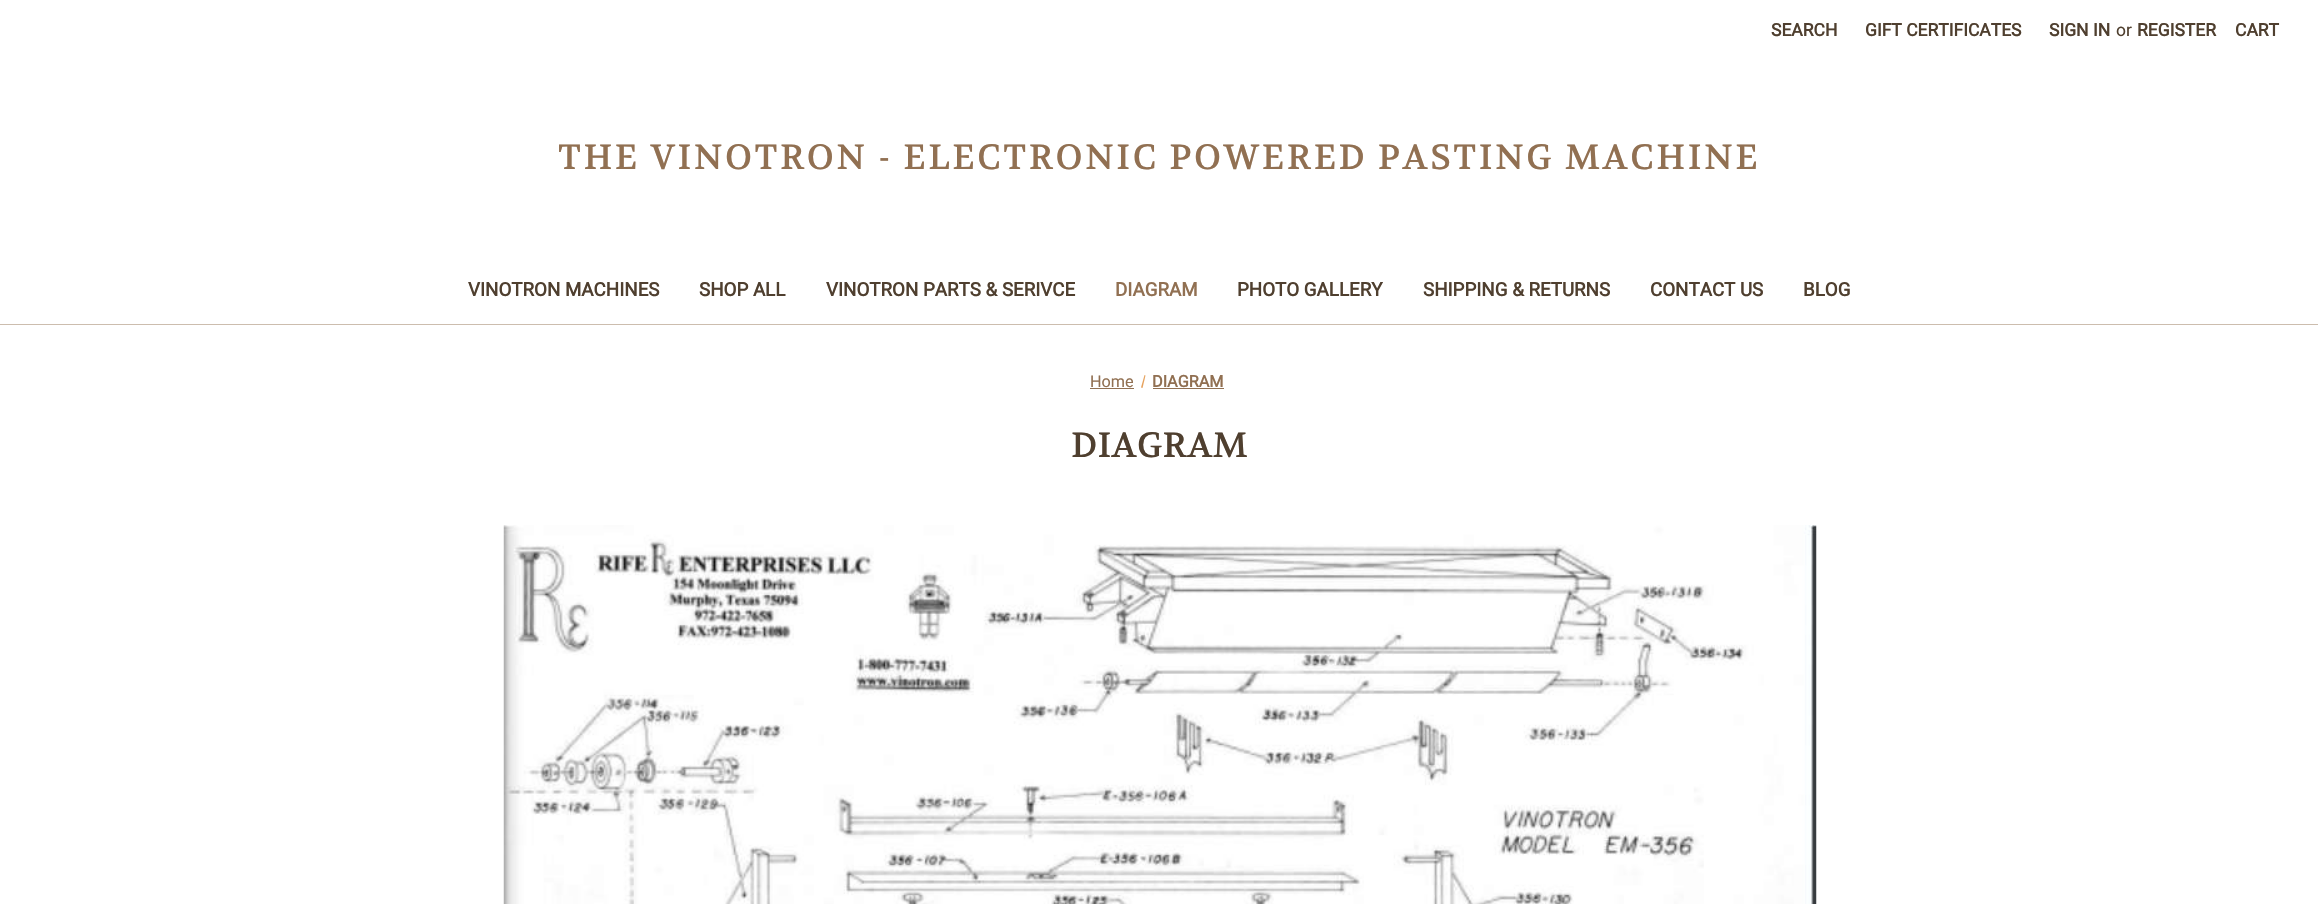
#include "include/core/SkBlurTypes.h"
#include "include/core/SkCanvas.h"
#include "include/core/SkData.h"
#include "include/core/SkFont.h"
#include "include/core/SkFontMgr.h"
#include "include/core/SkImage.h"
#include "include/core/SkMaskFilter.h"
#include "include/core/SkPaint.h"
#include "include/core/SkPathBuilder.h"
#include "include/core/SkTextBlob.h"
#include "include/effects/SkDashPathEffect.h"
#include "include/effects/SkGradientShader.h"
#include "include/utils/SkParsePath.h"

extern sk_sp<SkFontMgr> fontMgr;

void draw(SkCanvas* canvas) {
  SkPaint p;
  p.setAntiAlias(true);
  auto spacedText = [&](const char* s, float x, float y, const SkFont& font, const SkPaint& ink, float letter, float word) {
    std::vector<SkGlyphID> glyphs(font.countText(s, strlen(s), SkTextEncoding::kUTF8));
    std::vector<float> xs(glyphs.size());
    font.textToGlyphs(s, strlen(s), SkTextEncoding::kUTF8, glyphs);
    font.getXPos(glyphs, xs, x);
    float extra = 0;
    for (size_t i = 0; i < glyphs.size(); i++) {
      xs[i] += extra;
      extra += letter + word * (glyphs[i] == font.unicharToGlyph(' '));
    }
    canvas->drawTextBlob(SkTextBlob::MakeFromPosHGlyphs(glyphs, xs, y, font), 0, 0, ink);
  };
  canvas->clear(SK_ColorWHITE);
  p.setColor(SkColorSetRGB(204, 189, 174));
  canvas->drawRect(SkRect::MakeLTRB(0, 324, 2318, 325), p);
  p.setColor(SkColorSetRGB(145, 112, 82));
  canvas->drawRect(SkRect::MakeLTRB(1090, 388, 1134, 389), p);
  p.setColor(SkColorSetRGB(230, 161, 92));
  canvas->drawPath(SkPathBuilder().moveTo(1144.5f, 375).lineTo(1145.5f, 375.5f).lineTo(1142.5f, 388).lineTo(1141, 387.5f).close().detach(), p);
  p.setColor(SkColorSetRGB(145, 112, 82));
  canvas->drawRect(SkRect::MakeLTRB(1153, 388, 1224, 389), p);
  canvas->drawImageRect(SkImages::DeferredFromEncodedData(SkData::MakeFromFileName("images/1.png")), SkRect::MakeLTRB(503, 525, 1817, 904), SkSamplingOptions());
  SkFont font1(fontMgr->matchFamilyStyle("Roboto", SkFontStyle::Bold()), 17.5f);
  font1.setSubpixel(true);
  p.setColor(SkColorSetRGB(79, 63, 47));
  canvas->drawString("SEARCH", 1771, 36, font1, p);
  canvas->drawString("GIFT CERTIFICATES", 1865, 36, font1, p);
  canvas->drawString("SIGN IN", 2049, 36, font1, p);
  SkFont font2(fontMgr->matchFamilyStyle("Roboto", SkFontStyle::Normal()), 17.5f);
  font2.setSubpixel(true);
  canvas->drawString("or", 2116, 36, font2, p);
  canvas->drawString("REGISTER", 2137, 36, font1, p);
  canvas->drawString("CART", 2235, 36, font1, p);
  SkFont font3(fontMgr->matchFamilyStyle("Volkhov", SkFontStyle::Normal()), 35);
  font3.setSubpixel(true);
  p.setColor(SkColorSetRGB(145, 112, 82));
  spacedText("THE VINOTRON - ELECTRONIC POWERED PASTING MACHINE", 558, 169, font3, p, 2.5f, 0);
  SkFont font4(fontMgr->matchFamilyStyle("Roboto", SkFontStyle::Bold()), 18.75f);
  font4.setSubpixel(true);
  p.setColor(SkColorSetRGB(79, 63, 47));
  canvas->drawString("VINOTRON MACHINES", 468, 296, font4, p);
  canvas->drawString("SHOP ALL", 699, 296, font4, p);
  canvas->drawString("VINOTRON PARTS & SERIVCE", 826, 296, font4, p);
  p.setColor(SkColorSetRGB(145, 112, 82));
  canvas->drawString("DIAGRAM", 1115, 296, font4, p);
  p.setColor(SkColorSetRGB(79, 63, 47));
  canvas->drawString("PHOTO GALLERY", 1237, 296, font4, p);
  canvas->drawString("SHIPPING & RETURNS", 1423, 296, font4, p);
  canvas->drawString("CONTACT US", 1650, 296, font4, p);
  canvas->drawString("BLOG", 1803, 296, font4, p);
  SkFont font5(fontMgr->matchFamilyStyle("Roboto", SkFontStyle::Normal()), 16.25f);
  font5.setSubpixel(true);
  p.setColor(SkColorSetRGB(145, 112, 82));
  canvas->drawString("Home", 1090, 387, font5, p);
  SkFont font6(fontMgr->matchFamilyStyle("Roboto", SkFontStyle::Bold()), 16.25f);
  font6.setSubpixel(true);
  canvas->drawString("DIAGRAM", 1152, 387, font6, p);
  p.setColor(SkColorSetRGB(79, 63, 47));
  spacedText("DIAGRAM", 1071, 457, font3, p, 0.25f, 0);
}
